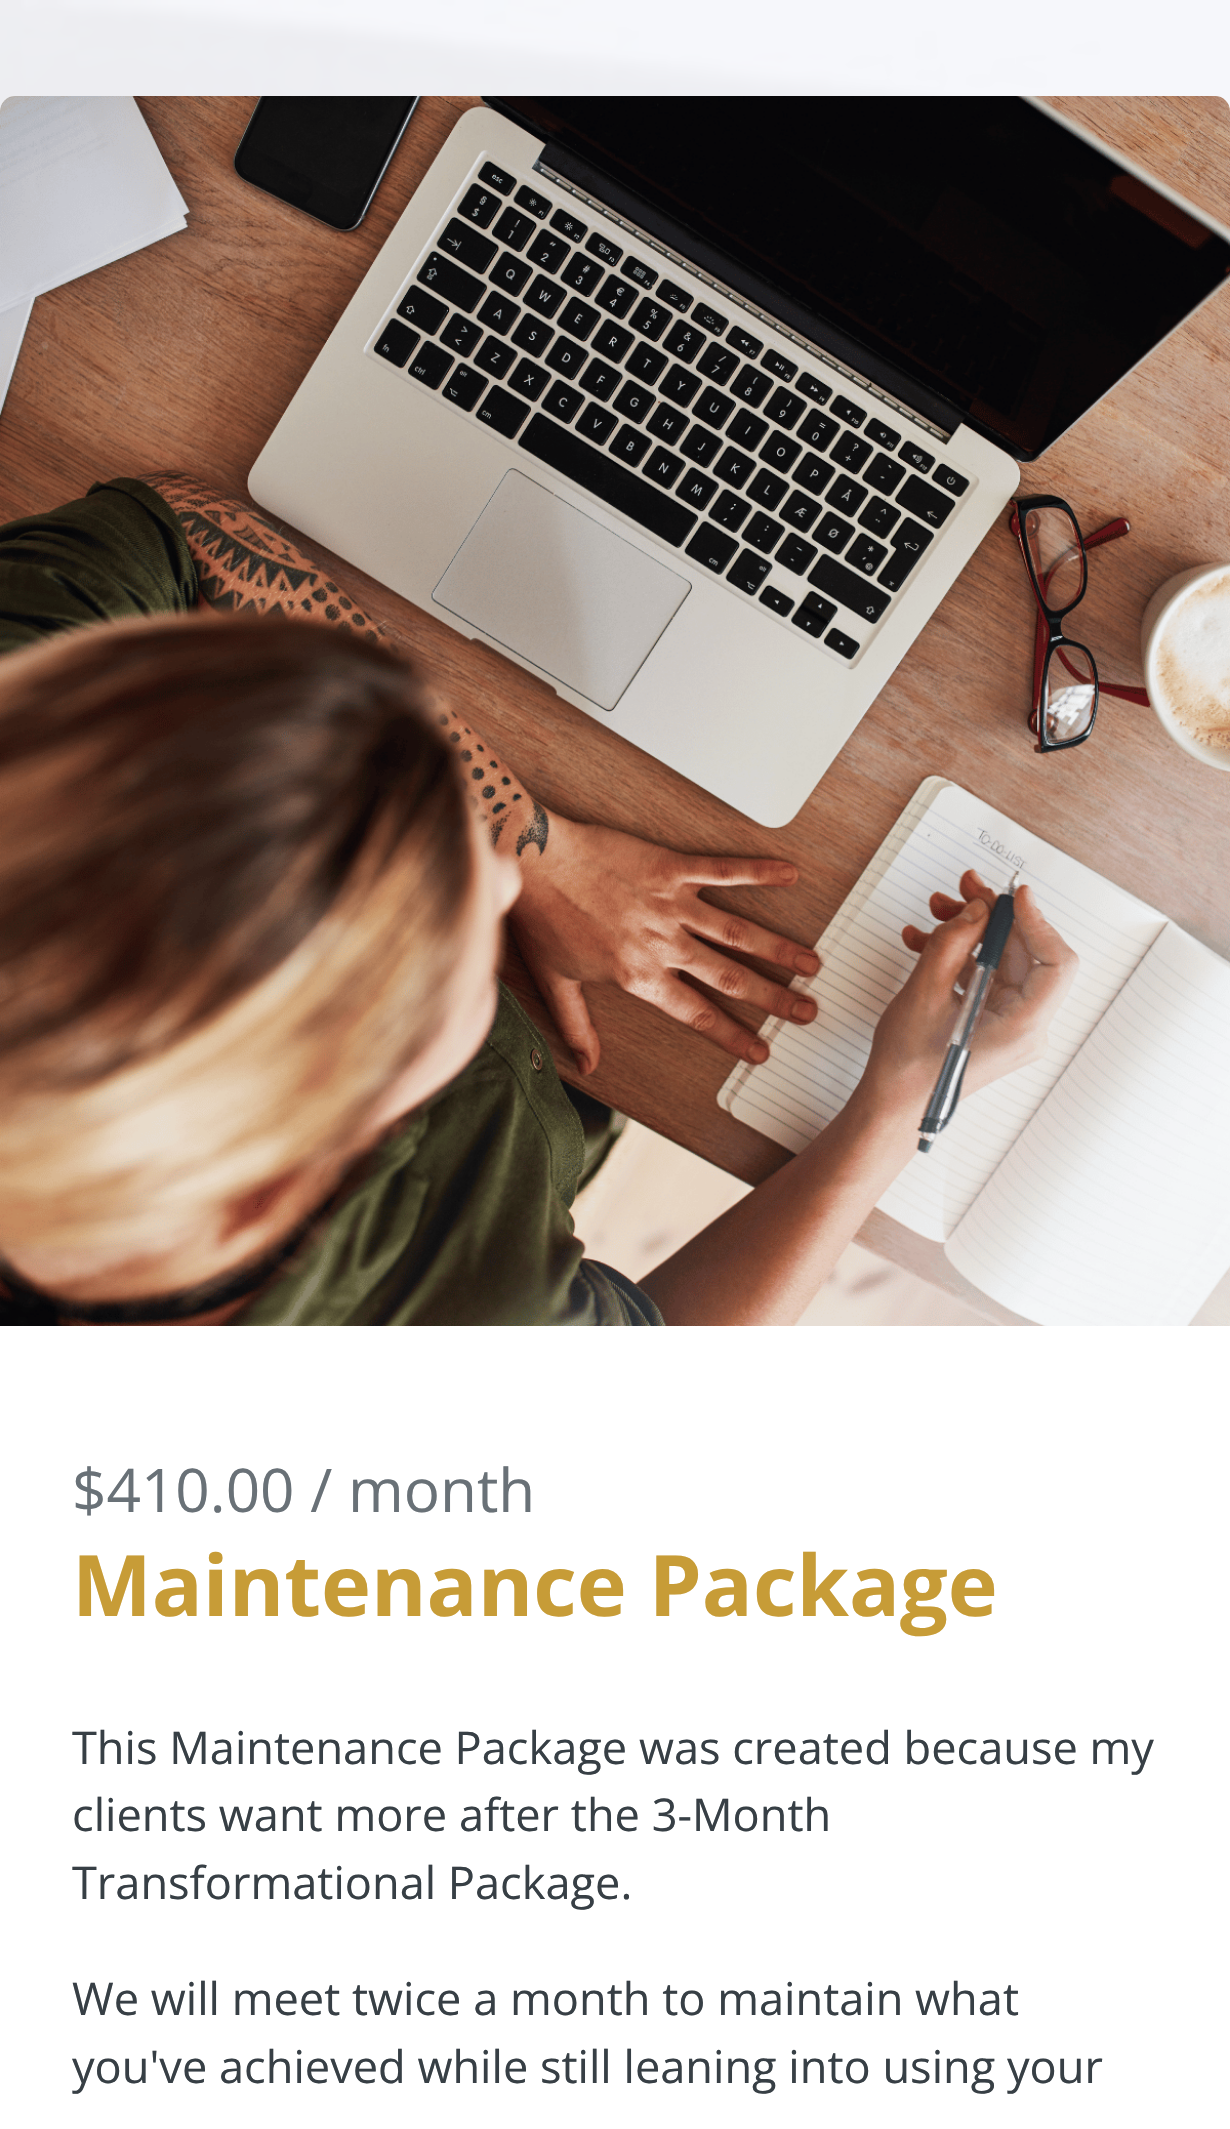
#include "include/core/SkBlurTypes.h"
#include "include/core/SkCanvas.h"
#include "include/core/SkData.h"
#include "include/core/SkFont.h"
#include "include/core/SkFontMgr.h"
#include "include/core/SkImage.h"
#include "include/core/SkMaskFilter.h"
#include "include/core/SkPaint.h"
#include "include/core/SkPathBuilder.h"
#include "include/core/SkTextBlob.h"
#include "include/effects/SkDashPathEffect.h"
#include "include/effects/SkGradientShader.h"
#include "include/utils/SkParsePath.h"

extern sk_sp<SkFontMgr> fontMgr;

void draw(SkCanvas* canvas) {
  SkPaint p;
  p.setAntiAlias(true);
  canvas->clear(SkColorSetRGB(249, 250, 254));
  canvas->drawImageRect(SkImages::DeferredFromEncodedData(SkData::MakeFromFileName("images/1.png")), SkRect::MakeLTRB(0, 0, 1230, 111), SkSamplingOptions());
  p.setColor(SK_ColorWHITE);
  canvas->drawRoundRect(SkRect::MakeLTRB(0, 96, 1230, 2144), 15, 15, p);
  canvas->drawPath(SkPathBuilder().moveTo(15, 96).lineTo(1215, 96).cubicTo(1223.5f, 96, 1230, 102.5f, 1230, 111).lineTo(1230, 1344).lineTo(0, 1344).lineTo(0, 111).cubicTo(0, 102.5f, 6.5f, 96, 15, 96).close().detach(), p);
  canvas->drawImageRect(SkImages::DeferredFromEncodedData(SkData::MakeFromFileName("images/2.png")), SkRect::MakeLTRB(0, 96, 1230, 1326), SkSamplingOptions());
  SkFont font1(fontMgr->matchFamilyStyle("Open Sans", SkFontStyle::Normal()), 60.25f);
  font1.setSubpixel(true);
  p.setColor(SkColorSetRGB(105, 113, 119));
  canvas->drawString("$410.00 / month", 72, 1512, font1, p);
  SkFont font2(fontMgr->matchFamilyStyle("Open Sans", SkFontStyle::Bold()), 84.6f);
  font2.setSubpixel(true);
  p.setColor(SkColorSetRGB(199, 156, 55));
  canvas->drawString("Maintenance Package", 72, 1616, font2, p);
  SkFont font3(fontMgr->matchFamilyStyle("Open Sans", SkFontStyle::Normal()), 45.15f);
  font3.setSubpixel(true);
  p.setColor(SkColorSetRGB(55, 63, 69));
  canvas->drawString("This Maintenance Package was created because my", 72, 1764, font3, p);
  canvas->drawString("clients want more after the 3-Month", 72, 1831, font3, p);
  canvas->drawString("Transformational Package.", 72, 1899, font3, p);
  canvas->drawString("We will meet twice a month to maintain what", 72, 2015, font3, p);
  canvas->drawString("you've achieved while still leaning into using your", 72, 2083, font3, p);
}
